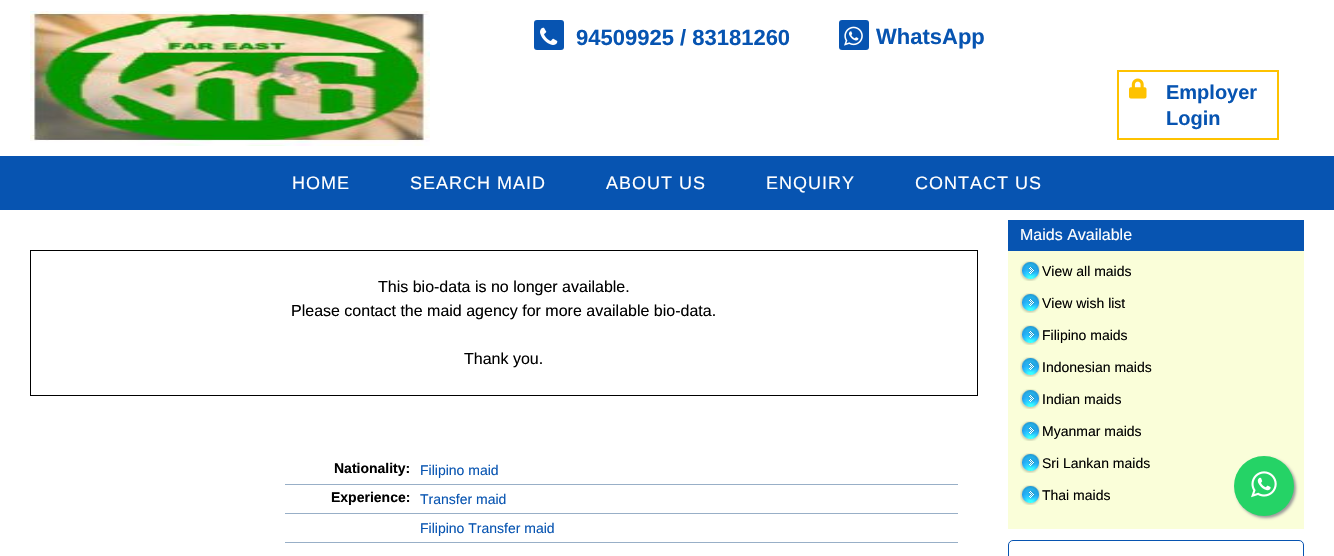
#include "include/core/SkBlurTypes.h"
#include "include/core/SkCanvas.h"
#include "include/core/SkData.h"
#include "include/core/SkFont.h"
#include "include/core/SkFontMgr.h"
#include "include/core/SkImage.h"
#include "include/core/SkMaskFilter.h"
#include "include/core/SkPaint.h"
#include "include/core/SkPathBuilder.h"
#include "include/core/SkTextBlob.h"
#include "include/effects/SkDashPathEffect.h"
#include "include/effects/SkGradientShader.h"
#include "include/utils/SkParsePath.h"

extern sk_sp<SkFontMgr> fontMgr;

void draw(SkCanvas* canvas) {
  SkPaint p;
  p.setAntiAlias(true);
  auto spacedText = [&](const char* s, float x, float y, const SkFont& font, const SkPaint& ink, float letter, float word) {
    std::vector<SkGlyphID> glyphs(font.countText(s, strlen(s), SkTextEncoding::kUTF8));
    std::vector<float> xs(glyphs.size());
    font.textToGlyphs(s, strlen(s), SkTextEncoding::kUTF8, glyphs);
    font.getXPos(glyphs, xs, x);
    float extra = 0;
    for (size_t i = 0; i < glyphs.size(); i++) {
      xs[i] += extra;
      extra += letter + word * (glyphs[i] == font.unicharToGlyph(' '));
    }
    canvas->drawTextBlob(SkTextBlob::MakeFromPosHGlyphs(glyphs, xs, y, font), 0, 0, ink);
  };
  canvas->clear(SK_ColorWHITE);
  canvas->drawImageRect(SkImages::DeferredFromEncodedData(SkData::MakeFromFileName("images/1.png")), SkRect::MakeLTRB(30, 11, 430, 146), SkSamplingOptions());
  p.setColor(SkColorSetRGB(7, 84, 177));
  canvas->drawRoundRect(SkRect::MakeLTRB(534, 20, 564, 50), 3, 3, p);
  canvas->drawImageRect(SkImages::DeferredFromEncodedData(SkData::MakeFromFileName("images/2.png")), SkRect::MakeLTRB(540, 27, 558, 45), SkSamplingOptions());
  canvas->drawRoundRect(SkRect::MakeLTRB(839, 20, 869, 50), 3, 3, p);
  canvas->drawImageRect(SkImages::DeferredFromEncodedData(SkData::MakeFromFileName("images/3.png")), SkRect::MakeLTRB(844, 26, 863, 46), SkSamplingOptions());
  p.setStyle(SkPaint::kStroke_Style);
  p.setStrokeWidth(2);
  p.setColor(SkColorSetRGB(254, 194, 0));
  canvas->drawRect(SkRect::MakeLTRB(1118, 71, 1278, 139), p);
  canvas->drawImageRect(SkImages::DeferredFromEncodedData(SkData::MakeFromFileName("images/4.png")), SkRect::MakeLTRB(1129, 78, 1147, 99), SkSamplingOptions());
  p.setStyle(SkPaint::kFill_Style);
  p.setColor(SkColorSetRGB(7, 84, 177));
  canvas->drawRect(SkRect::MakeLTRB(0, 156, 1334, 210), p);
  p.setStyle(SkPaint::kStroke_Style);
  p.setStrokeWidth(1);
  p.setColor(SK_ColorBLACK);
  canvas->drawRect(SkRect::MakeLTRB(30.5f, 250.5f, 977.5f, 395.5f), p);
  p.setStyle(SkPaint::kFill_Style);
  p.setColor(SkColorSetRGB(152, 175, 199));
  canvas->drawRect(SkRect::MakeLTRB(285, 484, 958, 485), p);
  canvas->drawRect(SkRect::MakeLTRB(285, 513, 958, 514), p);
  canvas->drawRect(SkRect::MakeLTRB(285, 542, 958, 543), p);
  p.setColor(SkColorSetRGB(250, 254, 217));
  canvas->drawRect(SkRect::MakeLTRB(1008, 251, 1304, 529), p);
  p.setColor(SkColorSetRGB(7, 84, 177));
  canvas->drawRect(SkRect::MakeLTRB(1008, 220, 1304, 251), p);
  canvas->drawImageRect(SkImages::DeferredFromEncodedData(SkData::MakeFromFileName("images/5.png")), SkRect::MakeLTRB(1020, 261, 1040, 281), SkSamplingOptions());
  canvas->drawImageRect(SkImages::DeferredFromEncodedData(SkData::MakeFromFileName("images/5.png")), SkRect::MakeLTRB(1020, 293, 1040, 313), SkSamplingOptions());
  canvas->drawImageRect(SkImages::DeferredFromEncodedData(SkData::MakeFromFileName("images/5.png")), SkRect::MakeLTRB(1020, 325, 1040, 345), SkSamplingOptions());
  canvas->drawImageRect(SkImages::DeferredFromEncodedData(SkData::MakeFromFileName("images/5.png")), SkRect::MakeLTRB(1020, 357, 1040, 377), SkSamplingOptions());
  canvas->drawImageRect(SkImages::DeferredFromEncodedData(SkData::MakeFromFileName("images/5.png")), SkRect::MakeLTRB(1020, 389, 1040, 409), SkSamplingOptions());
  canvas->drawImageRect(SkImages::DeferredFromEncodedData(SkData::MakeFromFileName("images/5.png")), SkRect::MakeLTRB(1020, 421, 1040, 441), SkSamplingOptions());
  canvas->drawImageRect(SkImages::DeferredFromEncodedData(SkData::MakeFromFileName("images/5.png")), SkRect::MakeLTRB(1020, 453, 1040, 473), SkSamplingOptions());
  canvas->drawImageRect(SkImages::DeferredFromEncodedData(SkData::MakeFromFileName("images/5.png")), SkRect::MakeLTRB(1020, 485, 1040, 505), SkSamplingOptions());
  p.setStyle(SkPaint::kStroke_Style);
  canvas->drawRoundRect(SkRect::MakeLTRB(1008.5f, 540.5f, 1303.5f, 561.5f), 4.5f, 4.5f, p);
  p.setStyle(SkPaint::kFill_Style);
  p.setColor(SkColorSetRGB(153, 153, 153));
  p.setMaskFilter(SkMaskFilter::MakeBlur(kNormal_SkBlurStyle, 1.5f));
  canvas->drawRoundRect(SkRect::MakeLTRB(1236, 458, 1296, 518), 30, 30, p);
  p.setMaskFilter(nullptr);
  p.setColor(SkColorSetRGB(37, 211, 102));
  canvas->drawCircle(1264, 486, 30, p);
  canvas->drawImageRect(SkImages::DeferredFromEncodedData(SkData::MakeFromFileName("images/6.png")), SkRect::MakeLTRB(1251, 471, 1277, 498), SkSamplingOptions());
  SkFont font1(fontMgr->matchFamilyStyle("Liberation Sans", SkFontStyle::Bold()), 22);
  font1.setSubpixel(true);
  p.setColor(SkColorSetRGB(7, 84, 177));
  canvas->drawString("94509925 / 83181260", 576, 45, font1, p);
  canvas->drawString("WhatsApp", 876, 44, font1, p);
  SkFont font2(fontMgr->matchFamilyStyle("Liberation Sans", SkFontStyle::Bold()), 20);
  font2.setSubpixel(true);
  canvas->drawString("Employer", 1166, 99, font2, p);
  canvas->drawString("Login", 1166, 125, font2, p);
  SkFont font3(fontMgr->matchFamilyStyle("Liberation Sans", SkFontStyle::Normal()), 18);
  font3.setSubpixel(true);
  p.setColor(SK_ColorWHITE);
  spacedText("HOME", 292, 189, font3, p, 1, 0);
  spacedText("SEARCH MAID", 410, 189, font3, p, 1, 0);
  spacedText("ABOUT US", 606, 189, font3, p, 1, 0);
  spacedText("ENQUIRY", 766, 189, font3, p, 1, 0);
  spacedText("CONTACT US", 915, 189, font3, p, 1, 0);
  SkFont font4(fontMgr->matchFamilyStyle("Liberation Sans", SkFontStyle::Normal()), 16);
  font4.setSubpixel(true);
  p.setColor(SK_ColorBLACK);
  canvas->drawString("This bio-data is no longer available.", 378, 292, font4, p);
  canvas->drawString("Please contact the maid agency for more available bio-data.", 291, 316, font4, p);
  canvas->drawString("Thank you.", 464, 364, font4, p);
  SkFont font5(fontMgr->matchFamilyStyle("Liberation Sans", SkFontStyle::Bold()), 14);
  font5.setSubpixel(true);
  canvas->drawString("Nationality:", 334, 473, font5, p);
  SkFont font6(fontMgr->matchFamilyStyle("Liberation Sans", SkFontStyle::Normal()), 14);
  font6.setSubpixel(true);
  p.setColor(SkColorSetRGB(7, 84, 177));
  canvas->drawString("Filipino maid", 420, 475, font6, p);
  p.setColor(SK_ColorBLACK);
  canvas->drawString("Experience:", 331, 502, font5, p);
  p.setColor(SkColorSetRGB(7, 84, 177));
  canvas->drawString("Transfer maid", 420, 504, font6, p);
  canvas->drawString("Filipino Transfer maid", 420, 533, font6, p);
  p.setColor(SK_ColorWHITE);
  canvas->drawString("Maids Available", 1020, 240, font4, p);
  p.setColor(SK_ColorBLACK);
  canvas->drawString("View all maids", 1042, 276, font6, p);
  canvas->drawString("View wish list", 1042, 308, font6, p);
  canvas->drawString("Filipino maids", 1042, 340, font6, p);
  canvas->drawString("Indonesian maids", 1042, 372, font6, p);
  canvas->drawString("Indian maids", 1042, 404, font6, p);
  canvas->drawString("Myanmar maids", 1042, 436, font6, p);
  canvas->drawString("Sri Lankan maids", 1042, 468, font6, p);
  canvas->drawString("Thai maids", 1042, 500, font6, p);
}
